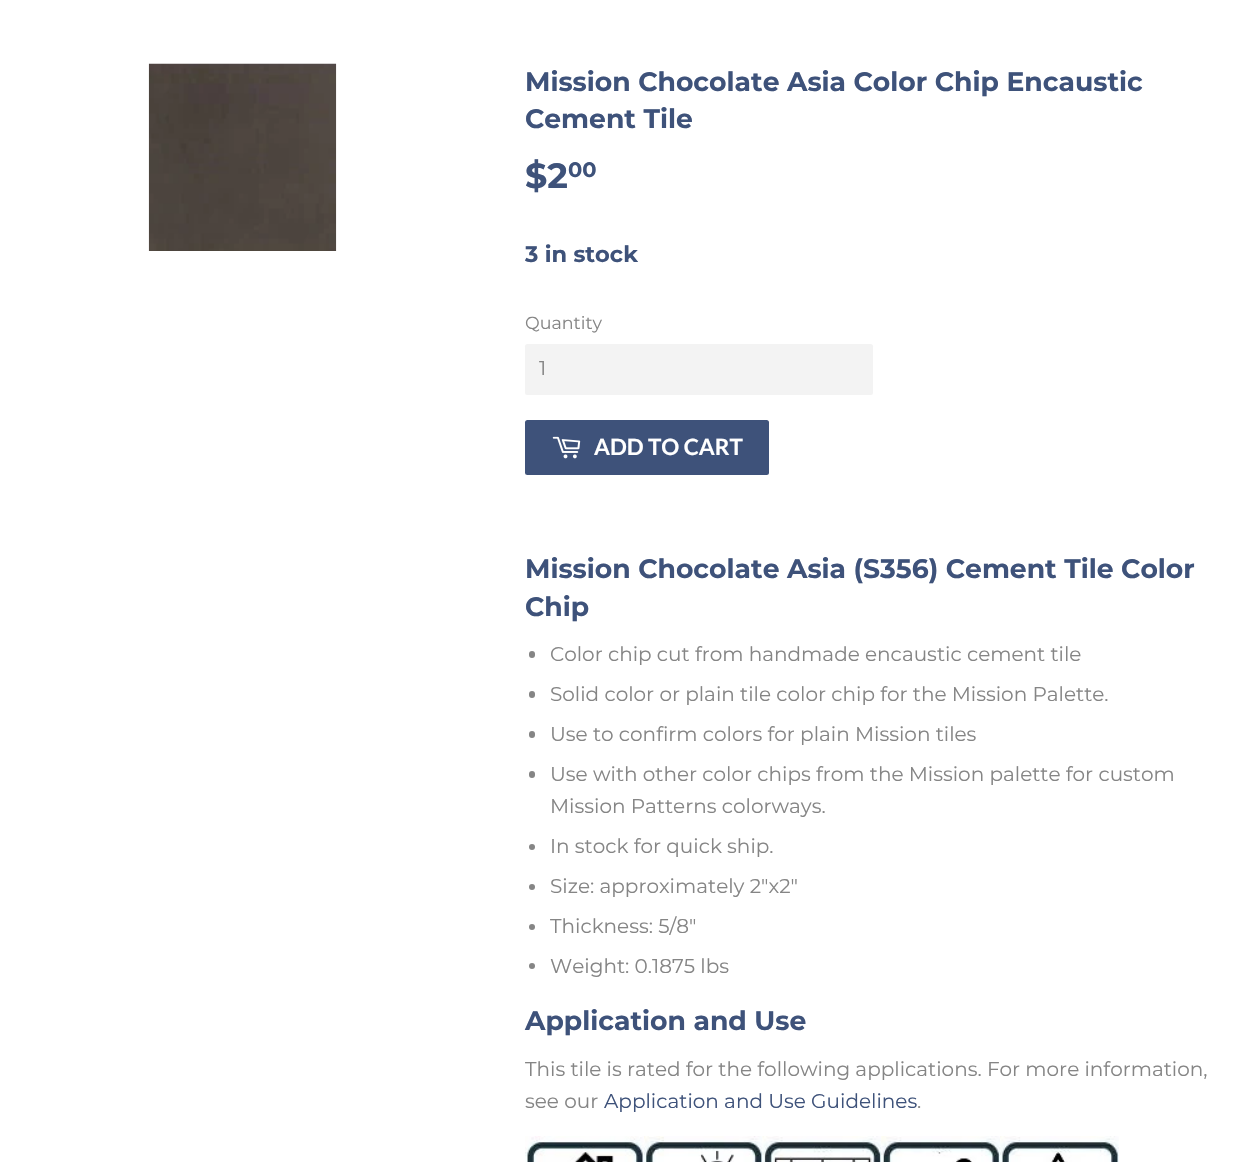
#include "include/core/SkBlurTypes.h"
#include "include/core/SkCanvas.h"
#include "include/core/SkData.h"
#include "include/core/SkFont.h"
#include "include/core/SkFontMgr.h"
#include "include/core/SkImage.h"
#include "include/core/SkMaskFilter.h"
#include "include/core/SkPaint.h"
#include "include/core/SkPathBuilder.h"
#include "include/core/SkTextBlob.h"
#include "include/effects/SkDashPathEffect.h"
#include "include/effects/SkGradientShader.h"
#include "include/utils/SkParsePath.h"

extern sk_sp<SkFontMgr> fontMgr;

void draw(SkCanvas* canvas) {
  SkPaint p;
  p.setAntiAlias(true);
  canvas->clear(SK_ColorWHITE);
  canvas->drawImageRect(SkImages::DeferredFromEncodedData(SkData::MakeFromFileName("images/1.png")), SkRect::MakeLTRB(148, 63, 337, 251), SkSamplingOptions());
  p.setColor(SkColorSetRGB(243, 243, 243));
  canvas->drawRoundRect(SkRect::MakeLTRB(525, 344, 873, 395), 2.5f, 2.5f, p);
  p.setColor(SkColorSetRGB(62, 82, 122));
  canvas->drawRoundRect(SkRect::MakeLTRB(525, 420, 769, 475), 2.5f, 2.5f, p);
  canvas->drawImageRect(SkImages::DeferredFromEncodedData(SkData::MakeFromFileName("images/2.png")), SkRect::MakeLTRB(552, 436, 581, 459), SkSamplingOptions());
  p.setColor(SkColorSetRGB(133, 133, 133));
  canvas->drawRoundRect(SkRect::MakeLTRB(529, 651, 535, 658), 3, 3, p);
  canvas->drawRoundRect(SkRect::MakeLTRB(529, 691, 535, 698), 3, 3, p);
  canvas->drawRoundRect(SkRect::MakeLTRB(529, 731, 535, 738), 3, 3, p);
  canvas->drawRoundRect(SkRect::MakeLTRB(529, 771, 535, 778), 3, 3, p);
  canvas->drawCircle(532, 847, 3, p);
  canvas->drawCircle(532, 887, 3, p);
  canvas->drawCircle(532, 927, 3, p);
  canvas->drawCircle(532, 966, 3, p);
  canvas->drawImageRect(SkImages::DeferredFromEncodedData(SkData::MakeFromFileName("images/3.png")), SkRect::MakeLTRB(525, 1136, 644, 1162), SkSamplingOptions());
  canvas->drawImageRect(SkImages::DeferredFromEncodedData(SkData::MakeFromFileName("images/4.png")), SkRect::MakeLTRB(644, 1136, 763, 1162), SkSamplingOptions());
  canvas->drawImageRect(SkImages::DeferredFromEncodedData(SkData::MakeFromFileName("images/5.png")), SkRect::MakeLTRB(762, 1136, 882, 1162), SkSamplingOptions());
  canvas->drawImageRect(SkImages::DeferredFromEncodedData(SkData::MakeFromFileName("images/6.png")), SkRect::MakeLTRB(881, 1136, 1000, 1162), SkSamplingOptions());
  canvas->drawImageRect(SkImages::DeferredFromEncodedData(SkData::MakeFromFileName("images/7.png")), SkRect::MakeLTRB(1000, 1136, 1119, 1162), SkSamplingOptions());
  SkFont font1(fontMgr->matchFamilyStyle("Montserrat", SkFontStyle::Bold()), 26.65f);
  font1.setSubpixel(true);
  p.setColor(SkColorSetRGB(62, 82, 122));
  canvas->drawString("Mission Chocolate Asia Color Chip Encaustic", 525, 91, font1, p);
  canvas->drawString("Cement Tile", 525, 128, font1, p);
  SkFont font2(fontMgr->matchFamilyStyle("Montserrat", SkFontStyle::Bold()), 35);
  font2.setSubpixel(true);
  canvas->drawString("$2", 525, 188, font2, p);
  SkFont font3(fontMgr->matchFamilyStyle("Montserrat", SkFontStyle::Bold()), 21);
  font3.setSubpixel(true);
  canvas->drawString("00", 568, 177, font3, p);
  SkFont font4(fontMgr->matchFamilyStyle("Montserrat", SkFontStyle::Bold()), 22.5f);
  font4.setSubpixel(true);
  canvas->drawString("3 in stock", 525, 262, font4, p);
  SkFont font5(fontMgr->matchFamilyStyle("Montserrat", SkFontStyle::Normal()), 17.5f);
  font5.setSubpixel(true);
  p.setColor(SkColorSetRGB(133, 133, 133));
  canvas->drawString("Quantity", 525, 329, font5, p);
  SkFont font6(fontMgr->matchFamilyStyle("Montserrat", SkFontStyle::Normal()), 20);
  font6.setSubpixel(true);
  canvas->drawString("1", 539, 375, font6, p);
  SkFont font7(fontMgr->matchFamilyStyle("Lato", SkFontStyle::Bold()), 22.5f);
  font7.setSubpixel(true);
  p.setColor(SK_ColorWHITE);
  canvas->drawString("ADD TO CART", 594, 455, font7, p);
  p.setColor(SkColorSetRGB(62, 82, 122));
  canvas->drawString("Mission Chocolate Asia (S356) Cement Tile Color", 525, 578, font1, p);
  canvas->drawString("Chip", 525, 616, font1, p);
  p.setColor(SkColorSetRGB(133, 133, 133));
  canvas->drawString("Color chip cut from handmade encaustic cement tile", 550, 661, font6, p);
  canvas->drawString("Solid color or plain tile color chip for the Mission Palette.", 550, 701, font6, p);
  canvas->drawString("Use to confirm colors for plain Mission tiles", 550, 741, font6, p);
  canvas->drawString("Use with other color chips from the Mission palette for custom", 550, 781, font6, p);
  canvas->drawString("Mission Patterns colorways.", 550, 813, font6, p);
  canvas->drawString("In stock for quick ship.", 550, 853, font6, p);
  canvas->drawString("Size: approximately 2″x2″", 550, 893, font6, p);
  canvas->drawString("Thickness: 5/8″", 550, 933, font6, p);
  canvas->drawString("Weight: 0.1875 lbs", 550, 973, font6, p);
  p.setColor(SkColorSetRGB(62, 82, 122));
  canvas->drawString("Application and Use", 525, 1030, font1, p);
  p.setColor(SkColorSetRGB(133, 133, 133));
  canvas->drawString("This tile is rated for the following applications. For more information,", 525, 1076, font6, p);
  canvas->drawString("see our", 525, 1108, font6, p);
  p.setColor(SkColorSetRGB(62, 82, 122));
  canvas->drawString("Application and Use Guidelines", 604, 1108, font6, p);
  p.setColor(SkColorSetRGB(133, 133, 133));
  canvas->drawString(".", 917, 1108, font6, p);
}
